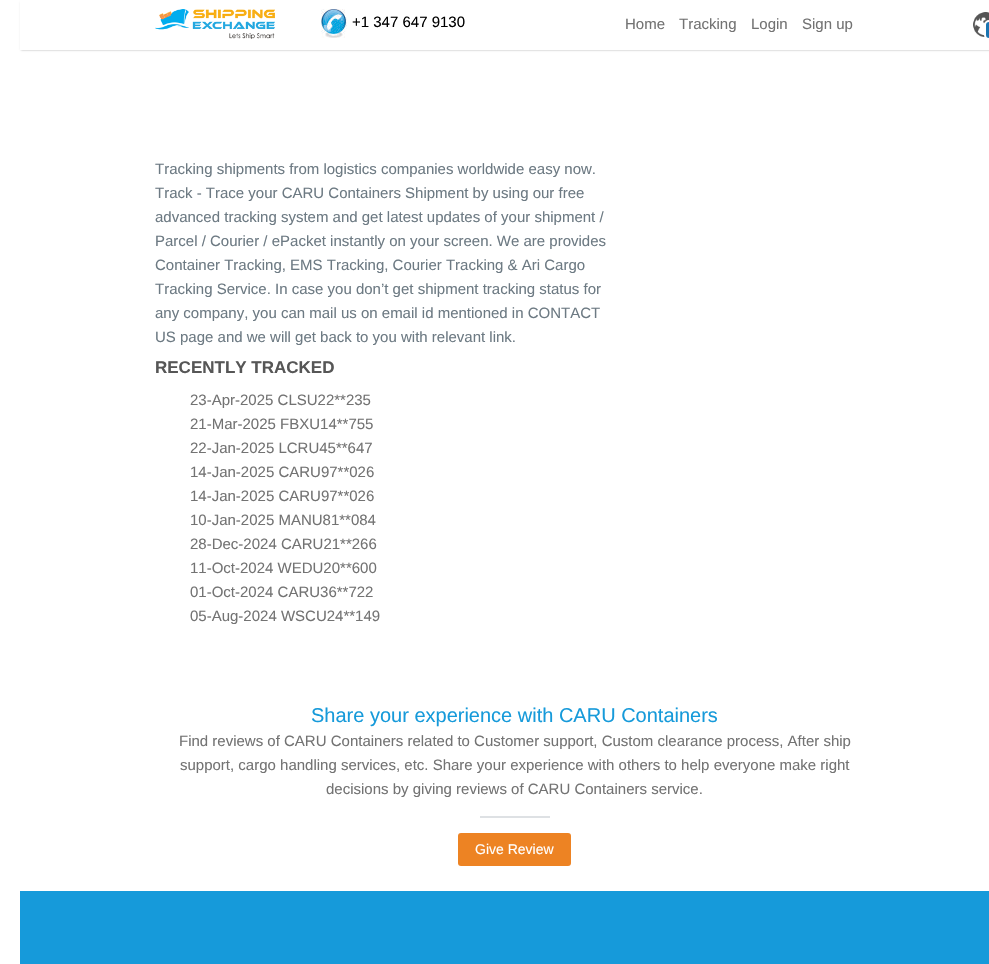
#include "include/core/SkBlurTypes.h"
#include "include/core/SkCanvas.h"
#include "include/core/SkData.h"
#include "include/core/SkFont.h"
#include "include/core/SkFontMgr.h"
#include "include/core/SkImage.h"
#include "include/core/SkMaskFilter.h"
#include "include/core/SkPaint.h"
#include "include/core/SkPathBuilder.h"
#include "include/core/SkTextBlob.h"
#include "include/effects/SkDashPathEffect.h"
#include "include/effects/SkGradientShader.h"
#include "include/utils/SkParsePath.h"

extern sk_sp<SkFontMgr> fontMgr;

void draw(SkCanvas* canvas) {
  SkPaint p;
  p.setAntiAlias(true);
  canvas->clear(SK_ColorWHITE);
  p.setColor(SkColorSetARGB(82, 0, 0, 0));
  p.setMaskFilter(SkMaskFilter::MakeBlur(kNormal_SkBlurStyle, 1));
  canvas->drawRect(SkRect::MakeLTRB(21, 2, 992, 50), p);
  p.setMaskFilter(nullptr);
  p.setColor(SK_ColorWHITE);
  canvas->drawRect(SkRect::MakeLTRB(20, 0, 989, 50), p);
  canvas->drawImageRect(SkImages::DeferredFromEncodedData(SkData::MakeFromFileName("images/1.png")), SkRect::MakeLTRB(155, 9, 275, 39), SkSamplingOptions());
  canvas->drawImageRect(SkImages::DeferredFromEncodedData(SkData::MakeFromFileName("images/2.png")), SkRect::MakeLTRB(321, 9, 347, 38), SkSamplingOptions());
  canvas->drawImageRect(SkImages::DeferredFromEncodedData(SkData::MakeFromFileName("images/3.png")), SkRect::MakeLTRB(973, 12, 989, 37), SkSamplingOptions());
  p.setColor(SkColorSetRGB(26, 116, 177));
  canvas->drawRoundRect(SkRect::MakeLTRB(985, 21, 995, 39), 4, 4, p);
  p.setStyle(SkPaint::kStroke_Style);
  p.setStrokeWidth(2);
  p.setColor(SK_ColorWHITE);
  canvas->drawRoundRect(SkRect::MakeLTRB(985, 21, 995, 39), 4, 4, p);
  p.setStyle(SkPaint::kFill_Style);
  p.setColor(SkColorSetRGB(222, 225, 228));
  canvas->drawRect(SkRect::MakeLTRB(480, 816, 550, 818), p);
  p.setColor(SkColorSetRGB(237, 131, 35));
  canvas->drawRoundRect(SkRect::MakeLTRB(458, 833, 571, 866), 3, 3, p);
  p.setColor(SkColorSetRGB(22, 154, 218));
  canvas->drawRect(SkRect::MakeLTRB(20, 891, 989, 964), p);
  SkFont font1(fontMgr->matchFamilyStyle("Liberation Sans", SkFontStyle::Normal()), 15);
  font1.setSubpixel(true);
  p.setColor(SK_ColorBLACK);
  canvas->drawString("+1 347 647 9130", 352, 27, font1, p);
  p.setColor(SkColorSetRGB(115, 115, 115));
  canvas->drawString("Home", 625, 29, font1, p);
  canvas->drawString("Tracking", 679, 29, font1, p);
  canvas->drawString("Login", 751, 29, font1, p);
  canvas->drawString("Sign up", 802, 29, font1, p);
  p.setColor(SkColorSetRGB(109, 122, 131));
  canvas->drawString("Tracking shipments from logistics companies worldwide easy now.", 155, 174, font1, p);
  canvas->drawString("Track - Trace your CARU Containers Shipment by using our free", 155, 198, font1, p);
  canvas->drawString("advanced tracking system and get latest updates of your shipment /", 155, 222, font1, p);
  canvas->drawString("Parcel / Courier / ePacket instantly on your screen. We are provides", 155, 246, font1, p);
  canvas->drawString("Container Tracking, EMS Tracking, Courier Tracking & Ari Cargo", 155, 270, font1, p);
  canvas->drawString("Tracking Service. In case you don’t get shipment tracking status for", 155, 294, font1, p);
  canvas->drawString("any company, you can mail us on email id mentioned in CONTACT", 155, 318, font1, p);
  canvas->drawString("US page and we will get back to you with relevant link.", 155, 342, font1, p);
  SkFont font2(fontMgr->matchFamilyStyle("Liberation Sans", SkFontStyle::Bold()), 17);
  font2.setSubpixel(true);
  p.setColor(SkColorSetRGB(86, 86, 86));
  canvas->drawString("RECENTLY TRACKED", 155, 373, font2, p);
  p.setColor(SkColorSetRGB(115, 115, 115));
  canvas->drawString("23-Apr-2025 CLSU22**235", 190, 405, font1, p);
  canvas->drawString("21-Mar-2025 FBXU14**755", 190, 429, font1, p);
  canvas->drawString("22-Jan-2025 LCRU45**647", 190, 453, font1, p);
  canvas->drawString("14-Jan-2025 CARU97**026", 190, 477, font1, p);
  canvas->drawString("14-Jan-2025 CARU97**026", 190, 501, font1, p);
  canvas->drawString("10-Jan-2025 MANU81**084", 190, 525, font1, p);
  canvas->drawString("28-Dec-2024 CARU21**266", 190, 549, font1, p);
  canvas->drawString("11-Oct-2024 WEDU20**600", 190, 573, font1, p);
  canvas->drawString("01-Oct-2024 CARU36**722", 190, 597, font1, p);
  canvas->drawString("05-Aug-2024 WSCU24**149", 190, 621, font1, p);
  SkFont font3(fontMgr->matchFamilyStyle("Liberation Sans", SkFontStyle::Normal()), 20);
  font3.setSubpixel(true);
  p.setColor(SkColorSetRGB(22, 154, 218));
  canvas->drawString("Share your experience with CARU Containers", 311, 722, font3, p);
  p.setColor(SkColorSetRGB(115, 115, 115));
  canvas->drawString("Find reviews of CARU Containers related to Customer support, Custom clearance process, After ship", 179, 746, font1, p);
  canvas->drawString("support, cargo handling services, etc. Share your experience with others to help everyone make right", 180, 770, font1, p);
  canvas->drawString("decisions by giving reviews of CARU Containers service.", 326, 794, font1, p);
  SkFont font4(fontMgr->matchFamilyStyle("Liberation Sans", SkFontStyle::Normal()), 14);
  font4.setSubpixel(true);
  p.setColor(SK_ColorWHITE);
  canvas->drawString("Give Review", 475, 854, font4, p);
}
